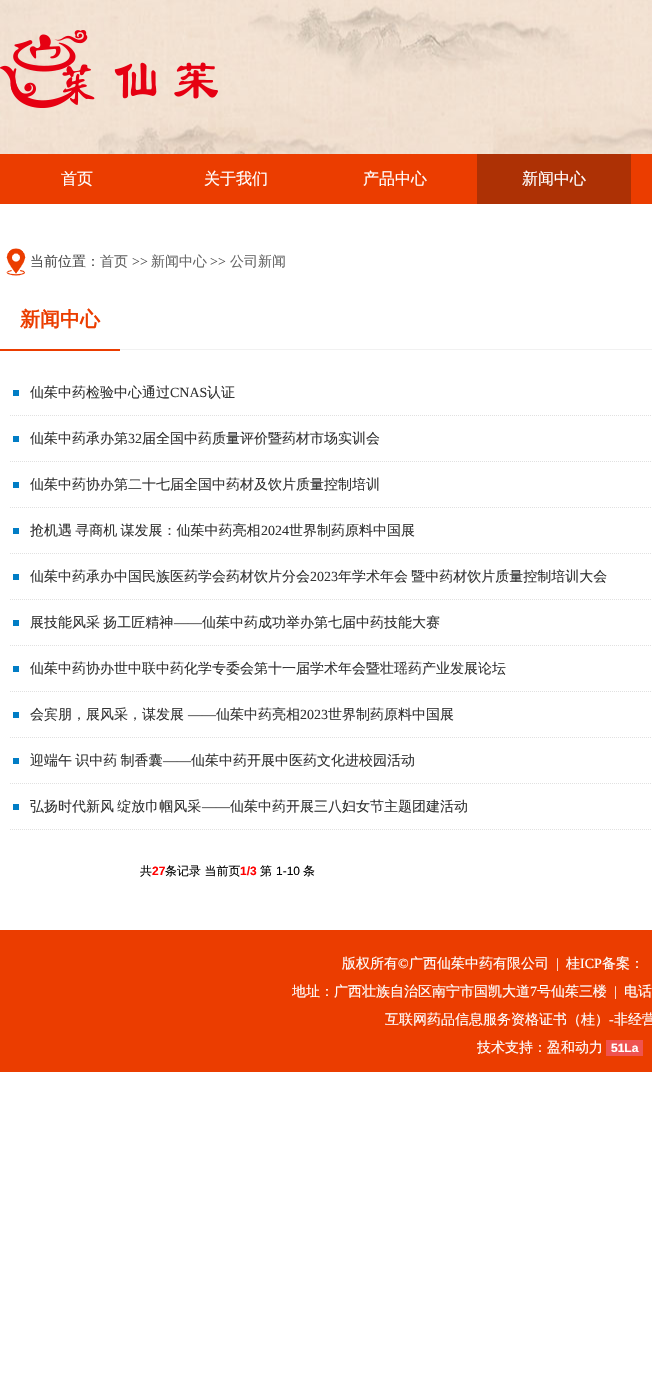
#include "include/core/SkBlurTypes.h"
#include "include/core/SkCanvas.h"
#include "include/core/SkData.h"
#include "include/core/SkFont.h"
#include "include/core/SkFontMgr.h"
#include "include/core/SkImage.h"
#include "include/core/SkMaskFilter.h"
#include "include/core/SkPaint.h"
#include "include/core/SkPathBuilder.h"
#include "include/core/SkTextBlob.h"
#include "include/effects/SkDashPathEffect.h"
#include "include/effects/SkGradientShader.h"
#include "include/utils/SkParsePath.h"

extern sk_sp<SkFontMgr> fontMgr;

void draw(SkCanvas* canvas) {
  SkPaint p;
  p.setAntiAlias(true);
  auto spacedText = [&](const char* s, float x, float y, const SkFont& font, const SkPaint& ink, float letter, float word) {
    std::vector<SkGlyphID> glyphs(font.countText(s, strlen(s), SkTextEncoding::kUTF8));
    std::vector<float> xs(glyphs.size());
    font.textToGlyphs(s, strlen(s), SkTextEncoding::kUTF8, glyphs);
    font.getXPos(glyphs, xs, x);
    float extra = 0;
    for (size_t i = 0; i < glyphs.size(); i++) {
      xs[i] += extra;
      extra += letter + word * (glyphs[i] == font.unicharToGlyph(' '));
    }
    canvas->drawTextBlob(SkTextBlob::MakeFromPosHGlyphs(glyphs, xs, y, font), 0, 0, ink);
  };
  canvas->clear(SK_ColorWHITE);
  canvas->drawImageRect(SkImages::DeferredFromEncodedData(SkData::MakeFromFileName("images/1.png")), SkRect::MakeLTRB(0, 0, 652, 154), SkSamplingOptions());
  canvas->drawImageRect(SkImages::DeferredFromEncodedData(SkData::MakeFromFileName("images/2.png")), SkRect::MakeLTRB(0, 30, 218, 108), SkSamplingOptions());
  p.setColor(SkColorSetRGB(235, 61, 0));
  canvas->drawRect(SkRect::MakeLTRB(0, 154, 652, 204), p);
  p.setColor(SkColorSetRGB(173, 49, 5));
  canvas->drawRect(SkRect::MakeLTRB(477, 154, 631, 204), p);
  canvas->drawImageRect(SkImages::DeferredFromEncodedData(SkData::MakeFromFileName("images/3.png")), SkRect::MakeLTRB(6, 248, 26, 276), SkSamplingOptions());
  p.setColor(SkColorSetRGB(241, 241, 241));
  canvas->drawRect(SkRect::MakeLTRB(120, 349, 652, 350), p);
  p.setColor(SkColorSetRGB(235, 61, 0));
  canvas->drawRect(SkRect::MakeLTRB(0, 349, 120, 351), p);
  p.setColor(SkColorSetRGB(1, 125, 197));
  canvas->drawRect(SkRect::MakeLTRB(13, 390, 19, 396), p);
  p.setStyle(SkPaint::kStroke_Style);
  p.setStrokeWidth(1);
  p.setColor(SkColorSetRGB(225, 225, 225));
  p.setPathEffect(SkDashPathEffect::Make({{1, 1}}, 0));
  canvas->drawPath(SkPathBuilder().moveTo(10, 415.5f).lineTo(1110, 415.5f).detach(), p);
  p.setPathEffect(nullptr);
  p.setStyle(SkPaint::kFill_Style);
  p.setColor(SkColorSetRGB(1, 125, 197));
  canvas->drawRect(SkRect::MakeLTRB(13, 436, 19, 442), p);
  p.setStyle(SkPaint::kStroke_Style);
  p.setColor(SkColorSetRGB(225, 225, 225));
  p.setPathEffect(SkDashPathEffect::Make({{1, 1}}, 0));
  canvas->drawPath(SkPathBuilder().moveTo(10, 461.5f).lineTo(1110, 461.5f).detach(), p);
  p.setPathEffect(nullptr);
  p.setStyle(SkPaint::kFill_Style);
  p.setColor(SkColorSetRGB(1, 125, 197));
  canvas->drawRect(SkRect::MakeLTRB(13, 482, 19, 488), p);
  p.setStyle(SkPaint::kStroke_Style);
  p.setColor(SkColorSetRGB(225, 225, 225));
  p.setPathEffect(SkDashPathEffect::Make({{1, 1}}, 0));
  canvas->drawPath(SkPathBuilder().moveTo(10, 507.5f).lineTo(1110, 507.5f).detach(), p);
  p.setPathEffect(nullptr);
  p.setStyle(SkPaint::kFill_Style);
  p.setColor(SkColorSetRGB(1, 125, 197));
  canvas->drawRect(SkRect::MakeLTRB(13, 528, 19, 534), p);
  p.setStyle(SkPaint::kStroke_Style);
  p.setColor(SkColorSetRGB(225, 225, 225));
  p.setPathEffect(SkDashPathEffect::Make({{1, 1}}, 0));
  canvas->drawPath(SkPathBuilder().moveTo(10, 553.5f).lineTo(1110, 553.5f).detach(), p);
  p.setPathEffect(nullptr);
  p.setStyle(SkPaint::kFill_Style);
  p.setColor(SkColorSetRGB(1, 125, 197));
  canvas->drawRect(SkRect::MakeLTRB(13, 574, 19, 580), p);
  p.setStyle(SkPaint::kStroke_Style);
  p.setColor(SkColorSetRGB(225, 225, 225));
  p.setPathEffect(SkDashPathEffect::Make({{1, 1}}, 0));
  canvas->drawPath(SkPathBuilder().moveTo(10, 599.5f).lineTo(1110, 599.5f).detach(), p);
  p.setPathEffect(nullptr);
  p.setStyle(SkPaint::kFill_Style);
  p.setColor(SkColorSetRGB(1, 125, 197));
  canvas->drawRect(SkRect::MakeLTRB(13, 620, 19, 626), p);
  p.setStyle(SkPaint::kStroke_Style);
  p.setColor(SkColorSetRGB(225, 225, 225));
  p.setPathEffect(SkDashPathEffect::Make({{1, 1}}, 0));
  canvas->drawPath(SkPathBuilder().moveTo(10, 645.5f).lineTo(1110, 645.5f).detach(), p);
  p.setPathEffect(nullptr);
  p.setStyle(SkPaint::kFill_Style);
  p.setColor(SkColorSetRGB(1, 125, 197));
  canvas->drawRect(SkRect::MakeLTRB(13, 666, 19, 672), p);
  p.setStyle(SkPaint::kStroke_Style);
  p.setColor(SkColorSetRGB(225, 225, 225));
  p.setPathEffect(SkDashPathEffect::Make({{1, 1}}, 0));
  canvas->drawPath(SkPathBuilder().moveTo(10, 691.5f).lineTo(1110, 691.5f).detach(), p);
  p.setPathEffect(nullptr);
  p.setStyle(SkPaint::kFill_Style);
  p.setColor(SkColorSetRGB(1, 125, 197));
  canvas->drawRect(SkRect::MakeLTRB(13, 712, 19, 718), p);
  p.setStyle(SkPaint::kStroke_Style);
  p.setColor(SkColorSetRGB(225, 225, 225));
  p.setPathEffect(SkDashPathEffect::Make({{1, 1}}, 0));
  canvas->drawPath(SkPathBuilder().moveTo(10, 737.5f).lineTo(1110, 737.5f).detach(), p);
  p.setPathEffect(nullptr);
  p.setStyle(SkPaint::kFill_Style);
  p.setColor(SkColorSetRGB(1, 125, 197));
  canvas->drawRect(SkRect::MakeLTRB(13, 758, 19, 764), p);
  p.setStyle(SkPaint::kStroke_Style);
  p.setColor(SkColorSetRGB(225, 225, 225));
  p.setPathEffect(SkDashPathEffect::Make({{1, 1}}, 0));
  canvas->drawPath(SkPathBuilder().moveTo(10, 783.5f).lineTo(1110, 783.5f).detach(), p);
  p.setPathEffect(nullptr);
  p.setStyle(SkPaint::kFill_Style);
  p.setColor(SkColorSetRGB(1, 125, 197));
  canvas->drawRect(SkRect::MakeLTRB(13, 804, 19, 810), p);
  p.setStyle(SkPaint::kStroke_Style);
  p.setColor(SkColorSetRGB(225, 225, 225));
  p.setPathEffect(SkDashPathEffect::Make({{1, 1}}, 0));
  canvas->drawPath(SkPathBuilder().moveTo(10, 829.5f).lineTo(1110, 829.5f).detach(), p);
  p.setPathEffect(nullptr);
  p.setStyle(SkPaint::kFill_Style);
  p.setColor(SkColorSetRGB(235, 61, 0));
  canvas->drawRect(SkRect::MakeLTRB(0, 930, 652, 1072), p);
  p.setColor(SkColorSetRGB(239, 83, 80));
  canvas->drawRect(SkRect::MakeLTRB(606, 1040, 643, 1056), p);
  SkFont font1(fontMgr->matchFamilyStyle("WenQuanYi Zen Hei", SkFontStyle(500, SkFontStyle::kNormal_Width, SkFontStyle::kUpright_Slant)), 16);
  font1.setSubpixel(true);
  p.setColor(SK_ColorWHITE);
  canvas->drawString("首页", 61, 184, font1, p);
  canvas->drawString("关于我们", 204, 184, font1, p);
  canvas->drawString("产品中心", 363, 184, font1, p);
  canvas->drawString("新闻中心", 522, 184, font1, p);
  SkFont font2(fontMgr->matchFamilyStyle("WenQuanYi Zen Hei", SkFontStyle(500, SkFontStyle::kNormal_Width, SkFontStyle::kUpright_Slant)), 14);
  font2.setSubpixel(true);
  p.setColor(SkColorSetRGB(77, 77, 77));
  canvas->drawString("当前位置：", 30, 266, font2, p);
  p.setColor(SkColorSetRGB(102, 102, 102));
  canvas->drawString("首页", 100, 266, font2, p);
  SkFont font3(fontMgr->matchFamilyStyle("Liberation Serif", SkFontStyle::Normal()), 14);
  font3.setSubpixel(true);
  p.setColor(SkColorSetRGB(77, 77, 77));
  canvas->drawString(">>", 132, 266, font3, p);
  p.setColor(SkColorSetRGB(102, 102, 102));
  canvas->drawString("新闻中心", 151, 266, font2, p);
  p.setColor(SkColorSetRGB(77, 77, 77));
  canvas->drawString(">>", 210, 266, font3, p);
  p.setColor(SkColorSetRGB(102, 102, 102));
  canvas->drawString("公司新闻", 230, 266, font2, p);
  SkFont font4(fontMgr->matchFamilyStyle("WenQuanYi Zen Hei", SkFontStyle::Bold()), 20);
  font4.setSubpixel(true);
  p.setColor(SkColorSetRGB(235, 61, 0));
  canvas->drawString("新闻中心", 20, 326, font4, p);
  p.setColor(SkColorSetRGB(51, 51, 51));
  canvas->drawString("仙茱中药检验中心通过", 30, 397, font2, p);
  canvas->drawString("CNAS", 170, 397, font3, p);
  canvas->drawString("认证", 207, 397, font2, p);
  canvas->drawString("仙茱中药承办第", 30, 443, font2, p);
  canvas->drawString("32", 128, 443, font3, p);
  canvas->drawString("届全国中药质量评价暨药材市场实训会", 142, 443, font2, p);
  canvas->drawString("仙茱中药协办第二十七届全国中药材及饮片质量控制培训", 30, 489, font2, p);
  spacedText("抢机遇 寻商机 谋发展：仙茱中药亮相", 30, 535, font2, p, 0, -1);
  canvas->drawString("2024", 261, 535, font3, p);
  canvas->drawString("世界制药原料中国展", 289, 535, font2, p);
  canvas->drawString("仙茱中药承办中国民族医药学会药材饮片分会", 30, 581, font2, p);
  canvas->drawString("2023", 310, 581, font3, p);
  spacedText("年学术年会 暨中药材饮片质量控制培训大会", 338, 581, font2, p, 0, -1);
  spacedText("展技能风采 扬工匠精神", 30, 627, font2, p, 0, -1);
  canvas->drawString("——", 174, 627, font3, p);
  canvas->drawString("仙茱中药成功举办第七届中药技能大赛", 202, 627, font2, p);
  canvas->drawString("仙茱中药协办世中联中药化学专委会第十一届学术年会暨壮瑶药产业发展论坛", 30, 673, font2, p);
  canvas->drawString("会宾朋，展风采，谋发展", 30, 719, font2, p);
  canvas->drawString("——", 188, 719, font3, p);
  canvas->drawString("仙茱中药亮相", 216, 719, font2, p);
  canvas->drawString("2023", 300, 719, font3, p);
  canvas->drawString("世界制药原料中国展", 328, 719, font2, p);
  spacedText("迎端午 识中药 制香囊", 30, 765, font2, p, 0, -1);
  canvas->drawString("——", 163, 765, font3, p);
  canvas->drawString("仙茱中药开展中医药文化进校园活动", 191, 765, font2, p);
  spacedText("弘扬时代新风 绽放巾帼风采", 30, 811, font2, p, 0, -1);
  canvas->drawString("——", 202, 811, font3, p);
  canvas->drawString("仙茱中药开展三八妇女节主题团建活动", 230, 811, font2, p);
  SkFont font5(fontMgr->matchFamilyStyle("WenQuanYi Zen Hei", SkFontStyle(500, SkFontStyle::kNormal_Width, SkFontStyle::kUpright_Slant)), 12);
  font5.setSubpixel(true);
  p.setColor(SK_ColorBLACK);
  canvas->drawString("共", 140, 875, font5, p);
  SkFont font6(fontMgr->matchFamilyStyle("Liberation Sans", SkFontStyle::Bold()), 12);
  font6.setSubpixel(true);
  p.setColor(SkColorSetRGB(255, 0, 0));
  canvas->drawString("27", 152, 875, font6, p);
  p.setColor(SK_ColorBLACK);
  canvas->drawString("条记录 当前页", 165, 875, font5, p);
  p.setColor(SkColorSetRGB(255, 0, 0));
  canvas->drawString("1/3", 240, 875, font6, p);
  p.setColor(SK_ColorBLACK);
  canvas->drawString("第", 260, 875, font5, p);
  SkFont font7(fontMgr->matchFamilyStyle("Liberation Sans", SkFontStyle::Normal()), 12);
  font7.setSubpixel(true);
  canvas->drawString("1-10", 276, 875, font7, p);
  canvas->drawString("条", 303, 875, font5, p);
  p.setColor(SK_ColorWHITE);
  canvas->drawString("版权所有", 342, 968, font2, p);
  canvas->drawString("©", 398, 968, font3, p);
  canvas->drawString("广西仙茱中药有限公司", 409, 968, font2, p);
  canvas->drawString("|", 556, 968, font3, p);
  canvas->drawString("桂", 566, 968, font2, p);
  canvas->drawString("ICP", 580, 968, font3, p);
  canvas->drawString("备案：", 602, 968, font2, p);
  canvas->drawString("地址：广西壮族自治区南宁市国凯大道", 292, 996, font2, p);
  canvas->drawString("7", 530, 996, font3, p);
  canvas->drawString("号仙茱三楼", 537, 996, font2, p);
  canvas->drawString("|", 614, 996, font3, p);
  canvas->drawString("电话", 624, 996, font2, p);
  canvas->drawString("互联网药品信息服务资格证书（桂）", 385, 1024, font2, p);
  canvas->drawString("-", 609, 1024, font3, p);
  canvas->drawString("非经营", 614, 1024, font2, p);
  canvas->drawString("技术支持：盈和动力", 477, 1052, font2, p);
  canvas->drawString("51La", 611, 1052, font6, p);
}
